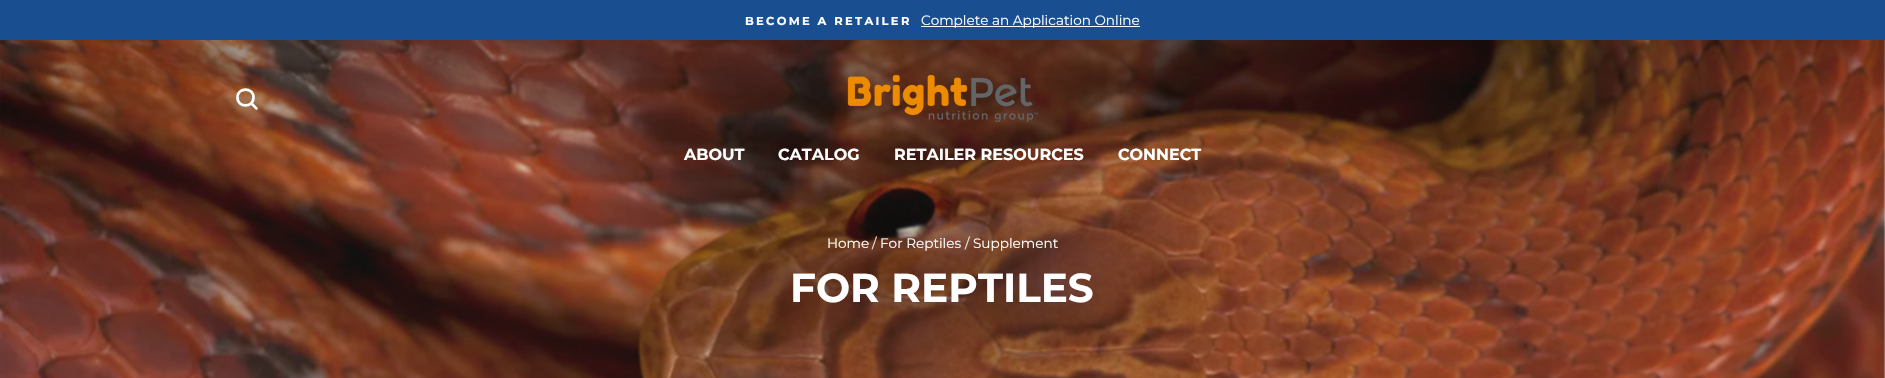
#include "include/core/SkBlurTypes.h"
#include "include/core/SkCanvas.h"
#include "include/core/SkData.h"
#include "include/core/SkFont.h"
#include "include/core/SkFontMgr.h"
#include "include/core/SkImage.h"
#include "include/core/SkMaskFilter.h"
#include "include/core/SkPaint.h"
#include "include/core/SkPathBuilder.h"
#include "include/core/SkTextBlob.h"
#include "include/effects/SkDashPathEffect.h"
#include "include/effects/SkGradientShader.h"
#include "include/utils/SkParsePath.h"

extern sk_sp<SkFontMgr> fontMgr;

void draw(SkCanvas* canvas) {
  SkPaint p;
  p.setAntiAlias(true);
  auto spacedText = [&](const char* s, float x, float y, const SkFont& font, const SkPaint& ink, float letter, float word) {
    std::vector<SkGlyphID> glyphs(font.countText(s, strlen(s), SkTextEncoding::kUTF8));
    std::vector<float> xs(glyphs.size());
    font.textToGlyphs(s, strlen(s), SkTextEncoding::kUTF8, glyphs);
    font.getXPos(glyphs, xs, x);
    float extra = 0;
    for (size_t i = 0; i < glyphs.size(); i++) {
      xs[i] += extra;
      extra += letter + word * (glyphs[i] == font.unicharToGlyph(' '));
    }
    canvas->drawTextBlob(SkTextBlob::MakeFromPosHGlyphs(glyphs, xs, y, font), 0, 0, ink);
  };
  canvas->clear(SK_ColorWHITE);
  p.setColor(SkColorSetRGB(25, 79, 144));
  canvas->drawRect(SkRect::MakeLTRB(0, 0, 1885, 40), p);
  p.setColor(SK_ColorWHITE);
  canvas->drawRect(SkRect::MakeLTRB(921, 26, 1140, 27), p);
  canvas->drawImageRect(SkImages::DeferredFromEncodedData(SkData::MakeFromFileName("images/2.png")), SkRect::MakeLTRB(0, 40, 1885, 378), SkSamplingOptions());
  {
    const SkColor colors[] = {SkColorSetARGB(77, 0, 0, 0), SkColorSetARGB(0, 0, 0, 0)};
    const float stops[] = {0, 1};
    const SkPoint ends[] = {{943, 40}, {943, 192}};
    p.setShader(SkGradientShader::MakeLinear(ends, colors, stops, 2, SkTileMode::kClamp));
    p.setAlpha(255);
  }
  canvas->drawRect(SkRect::MakeLTRB(0, 40, 1885, 181), p);
  p.setStyle(SkPaint::kStroke_Style);
  p.setStrokeWidth(2.6f);
  p.setStrokeCap(SkPaint::kRound_Cap);
  p.setStrokeJoin(SkPaint::kRound_Join);
  p.setShader(nullptr);
  p.setColor(SK_ColorWHITE);
  canvas->drawPath(SkPathBuilder().moveTo(253.5f, 97.5f).cubicTo(253.5f, 108, 237.5f, 108, 237.5f, 97.5f).cubicTo(237.5f, 87, 253.5f, 87, 253.5f, 97.5f).close().moveTo(256.5f, 108.5f).lineTo(251.5f, 103.5f).detach(), p);
  canvas->drawImageRect(SkImages::DeferredFromEncodedData(SkData::MakeFromFileName("images/1.png")), SkRect::MakeLTRB(847, 74, 1039, 123), SkSamplingOptions());
  SkFont font1(fontMgr->matchFamilyStyle("Montserrat", SkFontStyle::Bold()), 11.5f);
  font1.setSubpixel(true);
  p.setStyle(SkPaint::kFill_Style);
  spacedText("BECOME A RETAILER", 745, 25, font1, p, 2.3f, 0);
  SkFont font2(fontMgr->matchFamilyStyle("Montserrat", SkFontStyle::Normal()), 13.6f);
  font2.setSubpixel(true);
  canvas->drawString("Complete an Application Online", 921, 25, font2, p);
  SkFont font3(fontMgr->matchFamilyStyle("Montserrat", SkFontStyle::Bold()), 16);
  font3.setSubpixel(true);
  canvas->drawString("ABOUT", 684, 160, font3, p);
  canvas->drawString("CATALOG", 778, 160, font3, p);
  canvas->drawString("RETAILER RESOURCES", 894, 160, font3, p);
  canvas->drawString("CONNECT", 1118, 160, font3, p);
  canvas->drawString("Home", 827, 248, font2, p);
  p.setColor(SkColorSetRGB(232, 232, 225));
  canvas->drawString("/", 872, 248, font2, p);
  p.setColor(SK_ColorWHITE);
  canvas->drawString("For Reptiles", 880, 248, font2, p);
  p.setColor(SkColorSetRGB(232, 232, 225));
  canvas->drawString("/", 965, 248, font2, p);
  p.setColor(SK_ColorWHITE);
  canvas->drawString("Supplement", 973, 248, font2, p);
  SkFont font4(fontMgr->matchFamilyStyle("Montserrat", SkFontStyle::Bold()), 40.5f);
  font4.setSubpixel(true);
  canvas->drawString("FOR REPTILES", 790, 302, font4, p);
}
